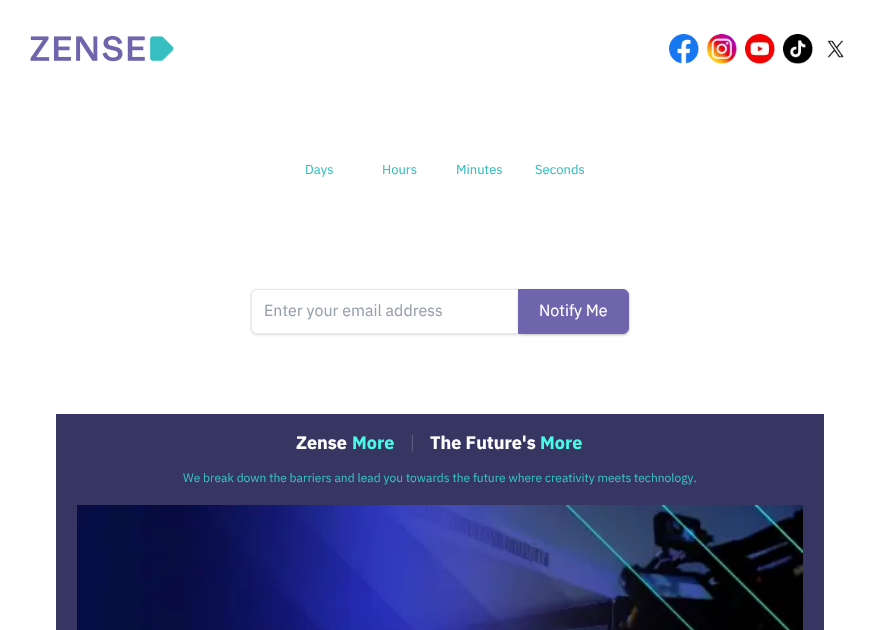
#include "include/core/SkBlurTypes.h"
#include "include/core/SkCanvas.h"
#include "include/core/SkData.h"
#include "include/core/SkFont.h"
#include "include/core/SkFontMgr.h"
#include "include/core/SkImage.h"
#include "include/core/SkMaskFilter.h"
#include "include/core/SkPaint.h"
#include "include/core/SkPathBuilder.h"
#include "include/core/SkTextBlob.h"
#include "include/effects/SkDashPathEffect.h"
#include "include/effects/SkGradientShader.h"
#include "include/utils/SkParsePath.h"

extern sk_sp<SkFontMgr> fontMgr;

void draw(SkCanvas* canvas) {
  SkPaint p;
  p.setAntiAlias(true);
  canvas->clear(SK_ColorWHITE);
  canvas->drawImageRect(SkImages::DeferredFromEncodedData(SkData::MakeFromFileName("images/1.png")), SkRect::MakeLTRB(30, 36, 174, 62), SkSamplingOptions());
  canvas->drawImageRect(SkImages::DeferredFromEncodedData(SkData::MakeFromFileName("images/2.png")), SkRect::MakeLTRB(669, 34, 699, 64), SkSamplingOptions());
  canvas->drawImageRect(SkImages::DeferredFromEncodedData(SkData::MakeFromFileName("images/3.png")), SkRect::MakeLTRB(707, 34, 737, 64), SkSamplingOptions());
  canvas->drawImageRect(SkImages::DeferredFromEncodedData(SkData::MakeFromFileName("images/4.png")), SkRect::MakeLTRB(745, 34, 775, 64), SkSamplingOptions());
  canvas->drawImageRect(SkImages::DeferredFromEncodedData(SkData::MakeFromFileName("images/5.png")), SkRect::MakeLTRB(783, 34, 813, 64), SkSamplingOptions());
  canvas->drawImageRect(SkImages::DeferredFromEncodedData(SkData::MakeFromFileName("images/6.png")), SkRect::MakeLTRB(827, 40, 844, 58), SkSamplingOptions());
  p.setColor(SkColorSetARGB(26, 0, 0, 0));
  p.setMaskFilter(SkMaskFilter::MakeBlur(kNormal_SkBlurStyle, 1));
  canvas->drawRoundRect(SkRect::MakeLTRB(252, 291, 628, 334), 5, 5, p);
  p.setMaskFilter(nullptr);
  p.setMaskFilter(SkMaskFilter::MakeBlur(kNormal_SkBlurStyle, 1.5f));
  canvas->drawRoundRect(SkRect::MakeLTRB(251, 290, 629, 335), 6, 6, p);
  p.setMaskFilter(nullptr);
  p.setColor(SK_ColorWHITE);
  canvas->drawRoundRect(SkRect::MakeLTRB(251.5f, 289.5f, 628.5f, 333.5f), 5.5f, 5.5f, p);
  p.setStyle(SkPaint::kStroke_Style);
  p.setStrokeWidth(1);
  p.setColor(SkColorSetRGB(226, 232, 240));
  canvas->drawRoundRect(SkRect::MakeLTRB(251.5f, 289.5f, 628.5f, 333.5f), 5.5f, 5.5f, p);
  p.setStyle(SkPaint::kFill_Style);
  p.setColor(SkColorSetARGB(26, 0, 0, 0));
  p.setMaskFilter(SkMaskFilter::MakeBlur(kNormal_SkBlurStyle, 1));
  canvas->drawRoundRect(SkRect::MakeLTRB(519, 291, 628, 334), 5, 5, p);
  p.setMaskFilter(nullptr);
  p.setMaskFilter(SkMaskFilter::MakeBlur(kNormal_SkBlurStyle, 1.5f));
  canvas->drawRoundRect(SkRect::MakeLTRB(518, 290, 629, 335), 6, 6, p);
  p.setMaskFilter(nullptr);
  p.setColor(SkColorSetRGB(110, 101, 173));
  canvas->drawPath(SkPathBuilder().moveTo(518.5f, 289.5f).lineTo(623, 289.5f).cubicTo(626, 289.5f, 628.5f, 292, 628.5f, 295).lineTo(628.5f, 328).cubicTo(628.5f, 331, 626, 333.5f, 623, 333.5f).lineTo(518.5f, 333.5f).close().detach(), p);
  p.setStyle(SkPaint::kStroke_Style);
  canvas->drawPath(SkPathBuilder().moveTo(518.5f, 289.5f).lineTo(623, 289.5f).cubicTo(626, 289.5f, 628.5f, 292, 628.5f, 295).lineTo(628.5f, 328).cubicTo(628.5f, 331, 626, 333.5f, 623, 333.5f).lineTo(518.5f, 333.5f).close().detach(), p);
  p.setStyle(SkPaint::kFill_Style);
  p.setColor(SkColorSetRGB(55, 53, 98));
  canvas->drawRect(SkRect::MakeLTRB(56, 414, 824, 630), p);
  canvas->drawImageRect(SkImages::DeferredFromEncodedData(SkData::MakeFromFileName("images/7.png")), SkRect::MakeLTRB(77, 505, 803, 630), SkSamplingOptions());
  SkFont font1(fontMgr->matchFamilyStyle("IBM Plex Sans Thai", SkFontStyle::Normal()), 13);
  font1.setSubpixel(true);
  p.setColor(SkColorSetRGB(53, 191, 192));
  canvas->drawString("Days", 305, 174, font1, p);
  canvas->drawString("Hours", 382, 174, font1, p);
  canvas->drawString("Minutes", 456, 174, font1, p);
  canvas->drawString("Seconds", 535, 174, font1, p);
  SkFont font2(fontMgr->matchFamilyStyle("IBM Plex Sans Thai", SkFontStyle::Normal()), 16);
  font2.setSubpixel(true);
  p.setColor(SkColorSetRGB(152, 160, 172));
  canvas->drawString("Enter your email address", 264, 316, font2, p);
  p.setColor(SK_ColorWHITE);
  canvas->drawString("Notify Me", 539, 316, font2, p);
  SkFont font3(fontMgr->matchFamilyStyle("IBM Plex Sans Thai", SkFontStyle::Bold()), 18);
  font3.setSubpixel(true);
  canvas->drawString("Zense", 296, 449, font3, p);
  p.setColor(SkColorSetRGB(70, 252, 229));
  canvas->drawString("More", 352, 449, font3, p);
  SkFont font4(fontMgr->matchFamilyStyle("IBM Plex Sans Thai", SkFontStyle(100, SkFontStyle::kNormal_Width, SkFontStyle::kUpright_Slant)), 18);
  font4.setSubpixel(true);
  p.setColor(SkColorSetRGB(155, 154, 177));
  canvas->drawString("|", 410, 449, font4, p);
  p.setColor(SK_ColorWHITE);
  canvas->drawString("The Future's", 430, 449, font3, p);
  p.setColor(SkColorSetRGB(70, 252, 229));
  canvas->drawString("More", 540, 449, font3, p);
  SkFont font5(fontMgr->matchFamilyStyle("IBM Plex Sans Thai", SkFontStyle::Normal()), 12);
  font5.setSubpixel(true);
  p.setColor(SkColorSetRGB(53, 191, 192));
  canvas->drawString("We break down the barriers and lead you towards the future where creativity meets technology.", 183, 482, font5, p);
}
